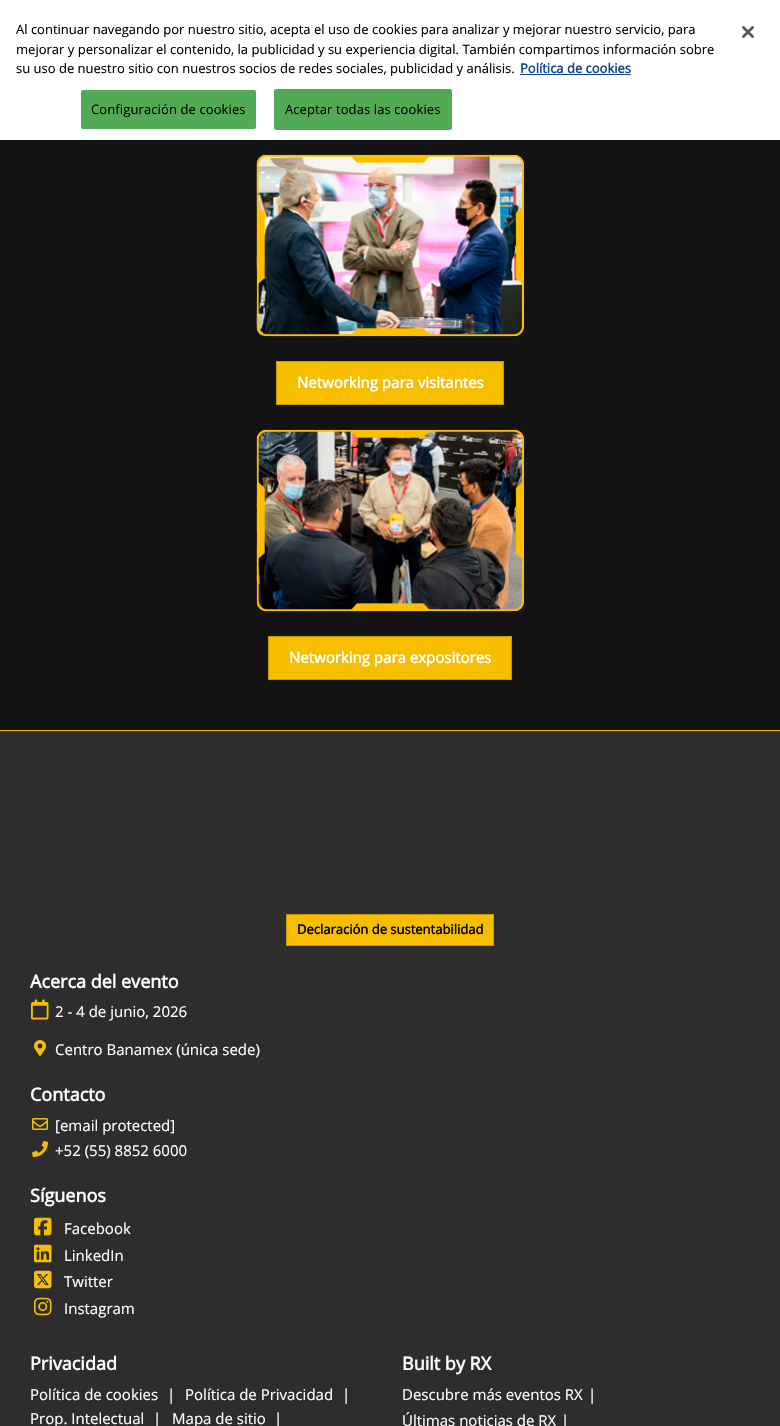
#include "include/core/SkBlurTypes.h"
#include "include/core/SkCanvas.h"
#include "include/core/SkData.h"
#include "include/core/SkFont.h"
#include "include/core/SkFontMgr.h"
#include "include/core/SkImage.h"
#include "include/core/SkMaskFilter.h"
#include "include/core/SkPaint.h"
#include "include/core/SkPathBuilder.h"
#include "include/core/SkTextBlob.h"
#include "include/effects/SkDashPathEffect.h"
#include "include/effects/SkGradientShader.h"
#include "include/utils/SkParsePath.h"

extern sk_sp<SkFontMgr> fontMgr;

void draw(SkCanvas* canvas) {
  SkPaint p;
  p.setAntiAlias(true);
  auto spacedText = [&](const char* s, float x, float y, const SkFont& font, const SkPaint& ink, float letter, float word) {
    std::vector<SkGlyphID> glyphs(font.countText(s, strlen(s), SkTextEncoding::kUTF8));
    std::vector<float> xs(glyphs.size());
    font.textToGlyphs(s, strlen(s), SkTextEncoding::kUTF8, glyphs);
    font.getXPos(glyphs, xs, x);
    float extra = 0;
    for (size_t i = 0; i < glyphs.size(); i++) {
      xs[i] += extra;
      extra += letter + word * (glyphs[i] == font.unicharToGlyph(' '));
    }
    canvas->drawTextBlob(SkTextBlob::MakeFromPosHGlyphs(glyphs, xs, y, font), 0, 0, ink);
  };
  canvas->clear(SkColorSetRGB(19, 19, 19));
  p.setColor(SK_ColorWHITE);
  canvas->drawRect(SkRect::MakeLTRB(0, 0, 780, 140), p);
  p.setColor(SkColorSetRGB(16, 69, 147));
  canvas->drawRect(SkRect::MakeLTRB(520, 74, 631, 75), p);
  p.setColor(SkColorSetRGB(82, 170, 85));
  canvas->drawRoundRect(SkRect::MakeLTRB(81, 90, 256, 129), 2, 2, p);
  canvas->drawRoundRect(SkRect::MakeLTRB(274.5f, 89.5f, 451.5f, 129.5f), 1.5f, 1.5f, p);
  p.setStyle(SkPaint::kStroke_Style);
  p.setStrokeWidth(1);
  canvas->drawRoundRect(SkRect::MakeLTRB(274.5f, 89.5f, 451.5f, 129.5f), 1.5f, 1.5f, p);
  canvas->drawImageRect(SkImages::DeferredFromEncodedData(SkData::MakeFromFileName("images/1.png")), SkRect::MakeLTRB(742, 26, 754, 38), SkSamplingOptions());
  canvas->drawImageRect(SkImages::DeferredFromEncodedData(SkData::MakeFromFileName("images/2.png")), SkRect::MakeLTRB(256, 154, 524, 337), SkSamplingOptions());
  p.setStyle(SkPaint::kFill_Style);
  p.setColor(SkColorSetRGB(247, 190, 0));
  canvas->drawRect(SkRect::MakeLTRB(276.5f, 361.5f, 503.5f, 404.5f), p);
  p.setStyle(SkPaint::kStroke_Style);
  p.setColor(SkColorSetRGB(198, 152, 0));
  canvas->drawRect(SkRect::MakeLTRB(276.5f, 361.5f, 503.5f, 404.5f), p);
  canvas->drawImageRect(SkImages::DeferredFromEncodedData(SkData::MakeFromFileName("images/3.png")), SkRect::MakeLTRB(256, 429, 524, 612), SkSamplingOptions());
  p.setStyle(SkPaint::kFill_Style);
  p.setColor(SkColorSetRGB(247, 190, 0));
  canvas->drawRect(SkRect::MakeLTRB(268.5f, 636.5f, 511.5f, 679.5f), p);
  p.setStyle(SkPaint::kStroke_Style);
  p.setColor(SkColorSetRGB(198, 152, 0));
  canvas->drawRect(SkRect::MakeLTRB(268.5f, 636.5f, 511.5f, 679.5f), p);
  p.setStyle(SkPaint::kFill_Style);
  p.setColor(SkColorSetRGB(45, 45, 45));
  canvas->drawRect(SkRect::MakeLTRB(0, 731, 780, 1426), p);
  p.setColor(SkColorSetRGB(247, 190, 0));
  canvas->drawRect(SkRect::MakeLTRB(0, 730, 780, 731), p);
  canvas->drawRect(SkRect::MakeLTRB(286.5f, 914.5f, 493.5f, 945.5f), p);
  p.setStyle(SkPaint::kStroke_Style);
  p.setColor(SkColorSetRGB(198, 152, 0));
  canvas->drawRect(SkRect::MakeLTRB(286.5f, 914.5f, 493.5f, 945.5f), p);
  canvas->drawImageRect(SkImages::DeferredFromEncodedData(SkData::MakeFromFileName("images/4.png")), SkRect::MakeLTRB(31, 999, 49, 1020), SkSamplingOptions());
  canvas->drawImageRect(SkImages::DeferredFromEncodedData(SkData::MakeFromFileName("images/5.png")), SkRect::MakeLTRB(34, 1040, 46, 1056), SkSamplingOptions());
  canvas->drawImageRect(SkImages::DeferredFromEncodedData(SkData::MakeFromFileName("images/6.png")), SkRect::MakeLTRB(32, 1118, 48, 1130), SkSamplingOptions());
  canvas->drawImageRect(SkImages::DeferredFromEncodedData(SkData::MakeFromFileName("images/7.png")), SkRect::MakeLTRB(32, 1141, 48, 1157), SkSamplingOptions());
  canvas->drawImageRect(SkImages::DeferredFromEncodedData(SkData::MakeFromFileName("images/8.png")), SkRect::MakeLTRB(34, 1217, 52, 1236), SkSamplingOptions());
  canvas->drawImageRect(SkImages::DeferredFromEncodedData(SkData::MakeFromFileName("images/9.png")), SkRect::MakeLTRB(34, 1244, 52, 1263), SkSamplingOptions());
  canvas->drawImageRect(SkImages::DeferredFromEncodedData(SkData::MakeFromFileName("images/10.png")), SkRect::MakeLTRB(34, 1270, 52, 1289), SkSamplingOptions());
  canvas->drawImageRect(SkImages::DeferredFromEncodedData(SkData::MakeFromFileName("images/11.png")), SkRect::MakeLTRB(34, 1297, 52, 1316), SkSamplingOptions());
  SkFont font1(fontMgr->matchFamilyStyle("Open Sans", SkFontStyle::Normal()), 13);
  font1.setSubpixel(true);
  p.setStyle(SkPaint::kFill_Style);
  p.setColor(SK_ColorBLACK);
  canvas->drawString("Al continuar navegando por nuestro sitio, acepta el uso de cookies para analizar y mejorar nuestro servicio, para", 16, 34, font1, p);
  canvas->drawString("mejorar y personalizar el contenido, la publicidad y su experiencia digital. También compartimos información sobre", 16, 54, font1, p);
  canvas->drawString("su uso de nuestro sitio con nuestros socios de redes sociales, publicidad y análisis.", 16, 73, font1, p);
  SkFont font2(fontMgr->matchFamilyStyle("Open Sans", SkFontStyle::Bold()), 13);
  font2.setSubpixel(true);
  p.setColor(SkColorSetRGB(16, 69, 147));
  canvas->drawString("Política de cookies", 520, 73, font2, p);
  p.setColor(SK_ColorBLACK);
  spacedText("Configuración de cookies", 91, 114, font1, p, 0.1f, 0);
  spacedText("Aceptar todas las cookies", 285, 114, font1, p, 0.1f, 0);
  SkFont font3(fontMgr->matchFamilyStyle("Open Sans", SkFontStyle::Bold()), 15);
  font3.setSubpixel(true);
  p.setColor(SK_ColorWHITE);
  canvas->drawString("Networking para visitantes", 297, 388, font3, p);
  canvas->drawString("Networking para expositores", 289, 663, font3, p);
  p.setColor(SK_ColorBLACK);
  canvas->drawString("Declaración de sustentabilidad", 297, 934, font2, p);
  SkFont font4(fontMgr->matchFamilyStyle("Open Sans", SkFontStyle::Bold()), 18);
  font4.setSubpixel(true);
  p.setColor(SK_ColorWHITE);
  canvas->drawString("Acerca del evento", 30, 988, font4, p);
  SkFont font5(fontMgr->matchFamilyStyle("Open Sans", SkFontStyle::Normal()), 15);
  font5.setSubpixel(true);
  canvas->drawString("2 - 4 de junio, 2026", 55, 1017, font5, p);
  canvas->drawString("Centro Banamex (única sede)", 55, 1055, font5, p);
  canvas->drawString("Contacto", 30, 1101, font4, p);
  canvas->drawString("[email protected]", 55, 1131, font5, p);
  canvas->drawString("+52 (55) 8852 6000", 55, 1156, font5, p);
  canvas->drawString("Síguenos", 30, 1202, font4, p);
  canvas->drawString("Facebook", 64, 1234, font5, p);
  canvas->drawString("LinkedIn", 64, 1261, font5, p);
  canvas->drawString("Twitter", 64, 1287, font5, p);
  canvas->drawString("Instagram", 64, 1314, font5, p);
  canvas->drawString("Privacidad", 30, 1370, font4, p);
  canvas->drawString("Política de cookies", 30, 1400, font5, p);
  canvas->drawString("|", 167, 1400, font5, p);
  canvas->drawString("Política de Privacidad", 185, 1400, font5, p);
  canvas->drawString("|", 342, 1400, font5, p);
  canvas->drawString("Prop. Intelectual", 30, 1424, font5, p);
  canvas->drawString("|", 153, 1424, font5, p);
  canvas->drawString("Mapa de sitio", 172, 1424, font5, p);
  canvas->drawString("|", 274, 1424, font5, p);
  canvas->drawString("Built by RX", 402, 1370, font4, p);
  canvas->drawString("Descubre más eventos RX", 402, 1400, font5, p);
  canvas->drawString("|", 588, 1400, font5, p);
  canvas->drawString("Últimas noticias de RX", 402, 1426, font5, p);
  canvas->drawString("|", 561, 1426, font5, p);
}
